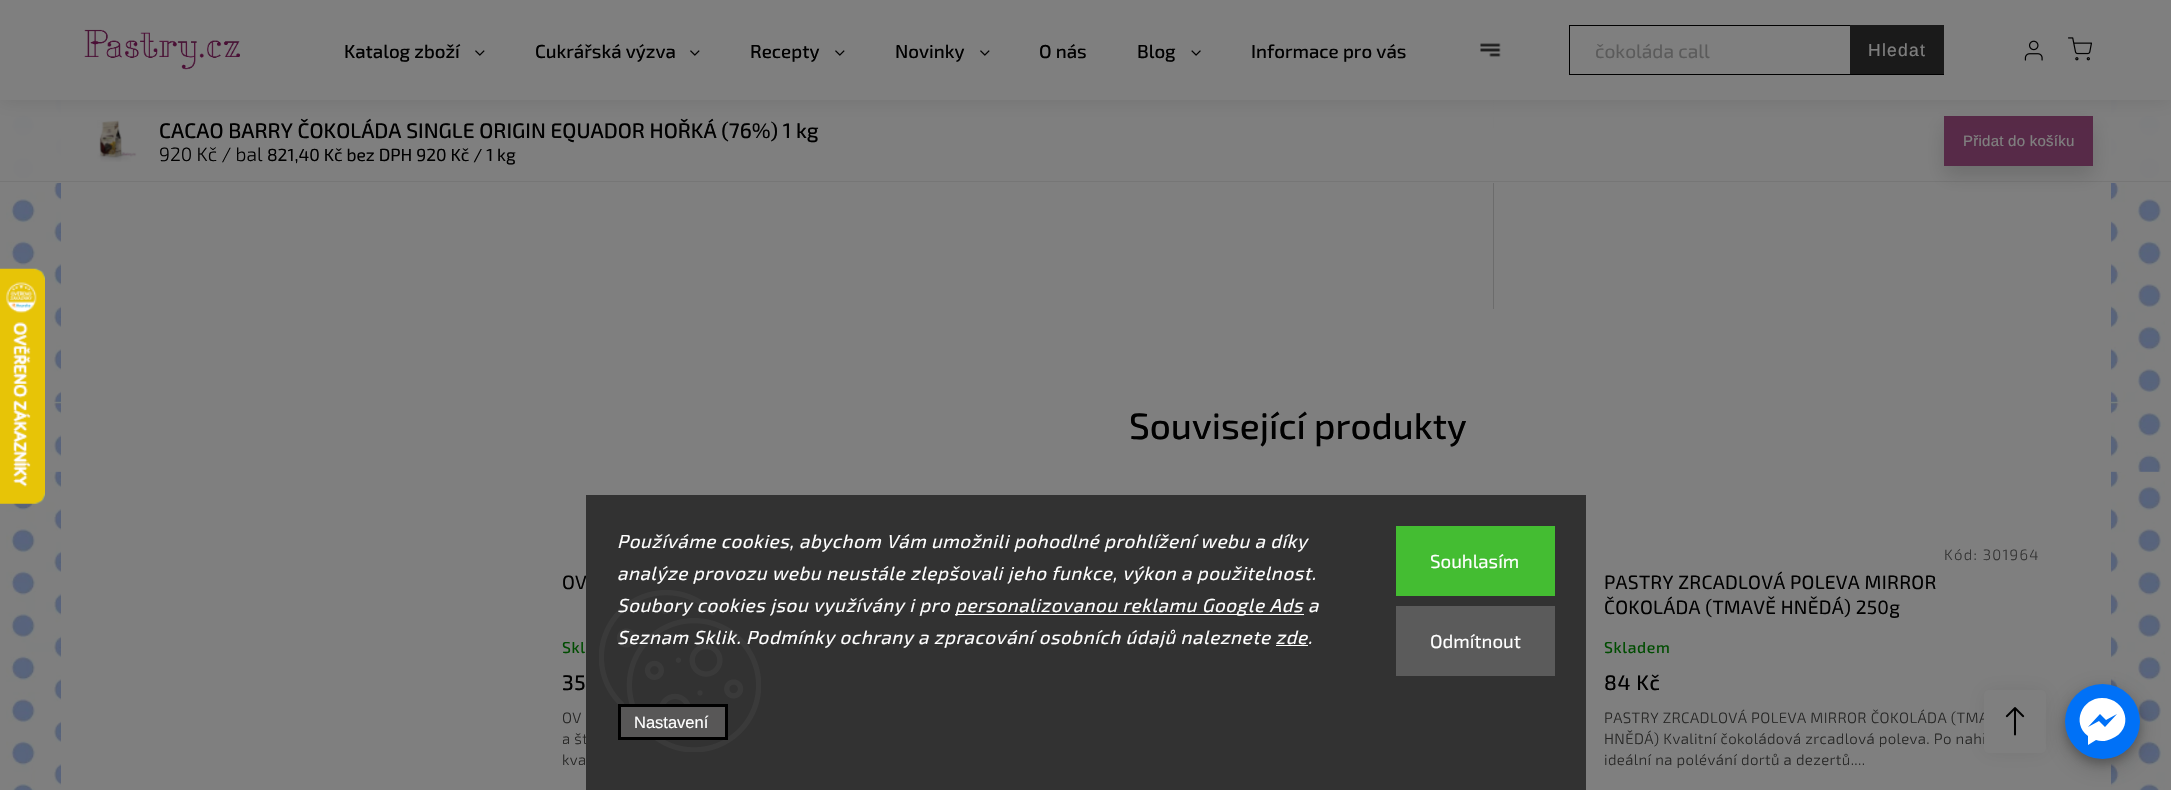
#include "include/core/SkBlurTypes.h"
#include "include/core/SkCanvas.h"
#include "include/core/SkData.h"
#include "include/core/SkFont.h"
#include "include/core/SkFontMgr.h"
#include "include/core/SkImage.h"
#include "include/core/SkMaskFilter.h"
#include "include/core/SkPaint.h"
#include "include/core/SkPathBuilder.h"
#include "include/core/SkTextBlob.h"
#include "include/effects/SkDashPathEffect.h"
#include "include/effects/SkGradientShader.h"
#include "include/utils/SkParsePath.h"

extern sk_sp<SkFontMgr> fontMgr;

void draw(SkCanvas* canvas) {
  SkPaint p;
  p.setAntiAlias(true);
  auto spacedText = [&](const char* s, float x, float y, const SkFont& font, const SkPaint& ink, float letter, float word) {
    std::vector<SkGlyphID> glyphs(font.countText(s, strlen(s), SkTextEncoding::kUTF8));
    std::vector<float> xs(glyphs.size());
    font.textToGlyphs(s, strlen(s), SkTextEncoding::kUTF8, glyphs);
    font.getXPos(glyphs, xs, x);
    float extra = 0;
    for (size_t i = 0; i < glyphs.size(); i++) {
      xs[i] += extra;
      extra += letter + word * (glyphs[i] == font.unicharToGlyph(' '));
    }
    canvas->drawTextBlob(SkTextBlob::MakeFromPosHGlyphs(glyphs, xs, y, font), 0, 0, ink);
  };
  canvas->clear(SK_ColorWHITE);
  canvas->drawImageRect(SkImages::DeferredFromEncodedData(SkData::MakeFromFileName("images/1.png")), SkRect::MakeLTRB(6, 100, 2165, 790), SkSamplingOptions());
  p.setColor(SK_ColorWHITE);
  canvas->drawRect(SkRect::MakeLTRB(61, 100, 2111, 790), p);
  p.setColor(SkColorSetRGB(217, 217, 217));
  canvas->drawRect(SkRect::MakeLTRB(1493, 100, 1494, 309), p);
  p.setColor(SkColorSetARGB(245, 255, 255, 255));
  canvas->drawRect(SkRect::MakeLTRB(6, 100, 2165, 183), p);
  canvas->drawImageRect(SkImages::DeferredFromEncodedData(SkData::MakeFromFileName("images/9.png")), SkRect::MakeLTRB(97, 120, 137, 162), SkSamplingOptions());
  p.setColor(SkColorSetRGB(237, 237, 237));
  canvas->drawRect(SkRect::MakeLTRB(0, 181, 2171, 182), p);
  p.setColor(SkColorSetARGB(41, 30, 30, 28));
  p.setMaskFilter(SkMaskFilter::MakeBlur(kNormal_SkBlurStyle, 10));
  canvas->drawRect(SkRect::MakeLTRB(1944, 126, 2093, 176), p);
  p.setMaskFilter(nullptr);
  p.setColor(SkColorSetRGB(175, 83, 144));
  canvas->drawRect(SkRect::MakeLTRB(1944, 116, 2093, 166), p);
  p.setColor(SkColorSetARGB(26, 0, 0, 0));
  p.setMaskFilter(SkMaskFilter::MakeBlur(kNormal_SkBlurStyle, 9.5f));
  canvas->drawRect(SkRect::MakeLTRB(0, 0, 2171, 100), p);
  p.setMaskFilter(nullptr);
  p.setColor(SK_ColorWHITE);
  canvas->drawRect(SkRect::MakeLTRB(0, 0, 2171, 100), p);
  canvas->drawImageRect(SkImages::DeferredFromEncodedData(SkData::MakeFromFileName("images/3.png")), SkRect::MakeLTRB(475, 50, 485, 56), SkSamplingOptions());
  canvas->drawImageRect(SkImages::DeferredFromEncodedData(SkData::MakeFromFileName("images/3.png")), SkRect::MakeLTRB(690, 50, 700, 56), SkSamplingOptions());
  canvas->drawImageRect(SkImages::DeferredFromEncodedData(SkData::MakeFromFileName("images/3.png")), SkRect::MakeLTRB(835, 50, 845, 56), SkSamplingOptions());
  canvas->drawImageRect(SkImages::DeferredFromEncodedData(SkData::MakeFromFileName("images/3.png")), SkRect::MakeLTRB(980, 50, 990, 56), SkSamplingOptions());
  canvas->drawImageRect(SkImages::DeferredFromEncodedData(SkData::MakeFromFileName("images/4.png")), SkRect::MakeLTRB(1191, 50, 1201, 56), SkSamplingOptions());
  canvas->drawImageRect(SkImages::DeferredFromEncodedData(SkData::MakeFromFileName("images/5.png")), SkRect::MakeLTRB(1480, 43, 1501, 57), SkSamplingOptions());
  canvas->drawImageRect(SkImages::DeferredFromEncodedData(SkData::MakeFromFileName("images/6.png")), SkRect::MakeLTRB(84, 29, 240, 70), SkSamplingOptions());
  p.setStyle(SkPaint::kStroke_Style);
  p.setStrokeWidth(1);
  p.setColor(SK_ColorBLACK);
  canvas->drawRect(SkRect::MakeLTRB(1569.5f, 25.5f, 1943.5f, 74.5f), p);
  p.setStyle(SkPaint::kFill_Style);
  p.setColor(SkColorSetRGB(51, 51, 51));
  canvas->drawRect(SkRect::MakeLTRB(1850, 25, 1944, 74), p);
  canvas->drawImageRect(SkImages::DeferredFromEncodedData(SkData::MakeFromFileName("images/7.png")), SkRect::MakeLTRB(2024, 40, 2043, 61), SkSamplingOptions());
  canvas->drawImageRect(SkImages::DeferredFromEncodedData(SkData::MakeFromFileName("images/8.png")), SkRect::MakeLTRB(2068, 37, 2092, 61), SkSamplingOptions());
  p.setColor(SkColorSetARGB(18, 0, 0, 0));
  p.setMaskFilter(SkMaskFilter::MakeBlur(kNormal_SkBlurStyle, 9.5f));
  canvas->drawRoundRect(SkRect::MakeLTRB(1984, 690, 2046, 753), 5, 5, p);
  p.setMaskFilter(nullptr);
  p.setColor(SkColorSetARGB(51, 0, 0, 0));
  p.setMaskFilter(SkMaskFilter::MakeBlur(kNormal_SkBlurStyle, 5));
  canvas->drawRoundRect(SkRect::MakeLTRB(2065, 689, 2140, 764), 37.5f, 37.5f, p);
  p.setMaskFilter(nullptr);
  SkFont font1(fontMgr->matchFamilyStyle("Exo 2", SkFontStyle(500, SkFontStyle::kNormal_Width, SkFontStyle::kUpright_Slant)), 18.75f);
  font1.setSubpixel(true);
  p.setColor(SK_ColorBLACK);
  canvas->drawString("Katalog zboží", 344, 58, font1, p);
  canvas->drawString("Cukrářská výzva", 535, 58, font1, p);
  canvas->drawString("Recepty", 750, 58, font1, p);
  canvas->drawString("Novinky", 895, 58, font1, p);
  canvas->drawString("O nás", 1039, 58, font1, p);
  canvas->drawString("Blog", 1137, 58, font1, p);
  canvas->drawString("Informace pro vás", 1251, 58, font1, p);
  SkFont font2(fontMgr->matchFamilyStyle("Exo 2", SkFontStyle::Normal()), 19.25f);
  font2.setSubpixel(true);
  p.setColor(SkColorSetRGB(182, 182, 182));
  canvas->drawString("čokoláda call", 1595, 58, font2, p);
  SkFont font3(fontMgr->matchFamilyStyle("Liberation Sans", SkFontStyle::Normal()), 17.5f);
  font3.setSubpixel(true);
  p.setColor(SK_ColorWHITE);
  spacedText("Hledat", 1868, 56, font3, p, 1.25f, 0);
  SkFont font4(fontMgr->matchFamilyStyle("Exo 2", SkFontStyle(500, SkFontStyle::kNormal_Width, SkFontStyle::kUpright_Slant)), 21);
  font4.setSubpixel(true);
  p.setColor(SK_ColorBLACK);
  canvas->drawString("CACAO BARRY ČOKOLÁDA SINGLE ORIGIN EQUADOR HOŘKÁ (76%) 1 kg", 159, 138, font4, p);
  SkFont font5(fontMgr->matchFamilyStyle("Exo 2", SkFontStyle(300, SkFontStyle::kNormal_Width, SkFontStyle::kUpright_Slant)), 19.25f);
  font5.setSubpixel(true);
  canvas->drawString("920 Kč / bal", 159, 161, font5, p);
  SkFont font6(fontMgr->matchFamilyStyle("Exo 2", SkFontStyle::Normal()), 17.5f);
  font6.setSubpixel(true);
  canvas->drawString("821,40 Kč bez DPH 920 Kč / 1 kg", 267, 161, font6, p);
  SkFont font7(fontMgr->matchFamilyStyle("Liberation Sans", SkFontStyle::Normal()), 15);
  font7.setSubpixel(true);
  p.setColor(SK_ColorWHITE);
  spacedText("Přidat do košíku", 1963, 146, font7, p, 0.25f, 0);
  SkFont font8(fontMgr->matchFamilyStyle("Exo 2", SkFontStyle(500, SkFontStyle::kNormal_Width, SkFontStyle::kUpright_Slant)), 36.75f);
  font8.setSubpixel(true);
  p.setColor(SK_ColorBLACK);
  canvas->drawString("Související produkty", 1129, 439, font8, p);
  spacedText("OV", 562, 589, font2, p, 0.25f, 0);
  SkFont font9(fontMgr->matchFamilyStyle("Exo 2", SkFontStyle(500, SkFontStyle::kNormal_Width, SkFontStyle::kUpright_Slant)), 15.75f);
  font9.setSubpixel(true);
  p.setColor(SkColorSetRGB(0, 153, 1));
  spacedText("Skl", 562, 653, font9, p, 0.62f, 0);
  p.setColor(SK_ColorBLACK);
  spacedText("35", 562, 690, font4, p, 0.62f, 0);
  SkFont font10(fontMgr->matchFamilyStyle("Exo 2", SkFontStyle(300, SkFontStyle::kNormal_Width, SkFontStyle::kUpright_Slant)), 15);
  font10.setSubpixel(true);
  p.setColor(SkColorSetRGB(75, 75, 73));
  spacedText("OV", 562, 723, font10, p, 0.38f, 0);
  canvas->save();
  canvas->clipRect(SkRect::MakeLTRB(563, 703, 993, 770));
  spacedText("a šť", 562, 744, font10, p, 0.38f, 0);
  canvas->restore();
  spacedText("kva", 562, 765, font10, p, 0.38f, 0);
  p.setColor(SkColorSetRGB(101, 101, 101));
  spacedText("Kód: 301964", 1944, 560, font10, p, 1.25f, 0);
  p.setColor(SK_ColorBLACK);
  spacedText("PASTRY ZRCADLOVÁ POLEVA MIRROR", 1604, 589, font2, p, 0.25f, 0);
  spacedText("ČOKOLÁDA (TMAVĚ HNĚDÁ) 250g", 1604, 614, font2, p, 0.25f, 0);
  p.setColor(SkColorSetRGB(0, 153, 1));
  spacedText("Skladem", 1604, 653, font9, p, 0.62f, 0);
  p.setColor(SK_ColorBLACK);
  spacedText("84 Kč", 1604, 690, font4, p, 0.62f, 0);
  p.setColor(SkColorSetRGB(75, 75, 73));
  spacedText("PASTRY ZRCADLOVÁ POLEVA MIRROR ČOKOLÁDA (TMA", 1604, 723, font10, p, 0.38f, 0);
  spacedText("HNĚDÁ) Kvalitní čokoládová zrcadlová poleva. Po nahř", 1604, 744, font10, p, 0.38f, 0);
  spacedText("ideální na polévání dortů a dezertů....", 1604, 765, font10, p, 0.38f, 0);
  p.setColor(SK_ColorWHITE);
  canvas->drawRoundRect(SkRect::MakeLTRB(1984, 690, 2046, 753), 5, 5, p);
  canvas->drawImageRect(SkImages::DeferredFromEncodedData(SkData::MakeFromFileName("images/11.png")), SkRect::MakeLTRB(2005, 707, 2025, 736), SkSamplingOptions());
  p.setColor(SkColorSetARGB(128, 0, 0, 0));
  p.setMaskFilter(SkMaskFilter::MakeBlur(kNormal_SkBlurStyle, 100));
  canvas->drawRect(SkRect::MakeLTRB(-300, -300, 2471, 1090), p);
  p.setMaskFilter(nullptr);
  canvas->drawImageRect(SkImages::DeferredFromEncodedData(SkData::MakeFromFileName("images/2.png")), SkRect::MakeLTRB(0, 268, 45, 504), SkSamplingOptions());
  p.setColor(SkColorSetRGB(50, 50, 50));
  canvas->drawRect(SkRect::MakeLTRB(586, 495, 1586, 790), p);
  p.setColor(SkColorSetRGB(91, 91, 91));
  canvas->drawRect(SkRect::MakeLTRB(1396, 606, 1555, 676), p);
  SkFont font11(fontMgr->matchFamilyStyle("Exo 2", SkFontStyle::Normal()), 18.75f);
  font11.setSubpixel(true);
  p.setColor(SK_ColorWHITE);
  canvas->drawString("Odmítnout", 1430, 648, font11, p);
  p.setColor(SkColorSetRGB(68, 189, 50));
  canvas->drawRect(SkRect::MakeLTRB(1396, 526, 1555, 596), p);
  p.setColor(SK_ColorWHITE);
  canvas->drawString("Souhlasím", 1430, 568, font11, p);
  canvas->drawImageRect(SkImages::DeferredFromEncodedData(SkData::MakeFromFileName("images/10.png")), SkRect::MakeLTRB(599, 590, 761, 752), SkSamplingOptions());
  p.setColor(SkColorSetRGB(88, 87, 87));
  canvas->drawRect(SkRect::MakeLTRB(619.5f, 705.5f, 726.5f, 738.5f), p);
  p.setStyle(SkPaint::kStroke_Style);
  p.setStrokeWidth(3);
  p.setColor(SK_ColorBLACK);
  canvas->drawRect(SkRect::MakeLTRB(619.5f, 705.5f, 726.5f, 738.5f), p);
  SkFont font12(fontMgr->matchFamilyStyle("Liberation Sans", SkFontStyle::Normal()), 16.5f);
  font12.setSubpixel(true);
  p.setStyle(SkPaint::kFill_Style);
  p.setColor(SK_ColorWHITE);
  canvas->drawString("Nastavení", 634, 728, font12, p);
  canvas->drawRect(SkRect::MakeLTRB(1276, 645, 1308, 646), p);
  SkFont font13(fontMgr->matchFamilyStyle("Exo 2", SkFontStyle::Italic()), 18.75f);
  font13.setSubpixel(true);
  spacedText("Seznam Sklik. Podmínky ochrany a zpracování osobních údajů naleznete zde.", 617, 644, font13, p, 0.62f, 0);
  canvas->drawRect(SkRect::MakeLTRB(955, 614, 1304, 615), p);
  spacedText("personalizovanou reklamu Google Ads a", 955, 612, font13, p, 0.62f, 0);
  spacedText("Soubory cookies jsou využívány i pro", 617, 612, font13, p, 0.62f, 0);
  spacedText("analýze provozu webu neustále zlepšovali jeho funkce, výkon a použitelnost.", 617, 580, font13, p, 0.62f, 0);
  spacedText("Používáme cookies, abychom Vám umožnili pohodlné prohlížení webu a díky", 617, 548, font13, p, 0.62f, 0);
  p.setColor(SkColorSetARGB(48, 0, 0, 0));
  p.setMaskFilter(SkMaskFilter::MakeBlur(kNormal_SkBlurStyle, 12.5f));
  canvas->drawRoundRect(SkRect::MakeLTRB(2065, 691, 2140, 766), 37.5f, 37.5f, p);
  p.setMaskFilter(nullptr);
  p.setColor(SkColorSetRGB(0, 113, 247));
  canvas->drawCircle(2102.5f, 721.5f, 37.5f, p);
  p.setColor(SK_ColorWHITE);
  canvas->drawPath(SkPathBuilder().moveTo(2102, 698).cubicTo(2082, 698, 2071, 723, 2088, 736).lineTo(2088, 745).lineTo(2096, 740).cubicTo(2101, 742, 2107, 741, 2111, 739).cubicTo(2135, 730, 2127, 698, 2102, 698).close().moveTo(2105, 727).lineTo(2099, 721).lineTo(2088, 727).lineTo(2100, 714).lineTo(2106, 720).lineTo(2117, 714).close().detach(), p);
}
